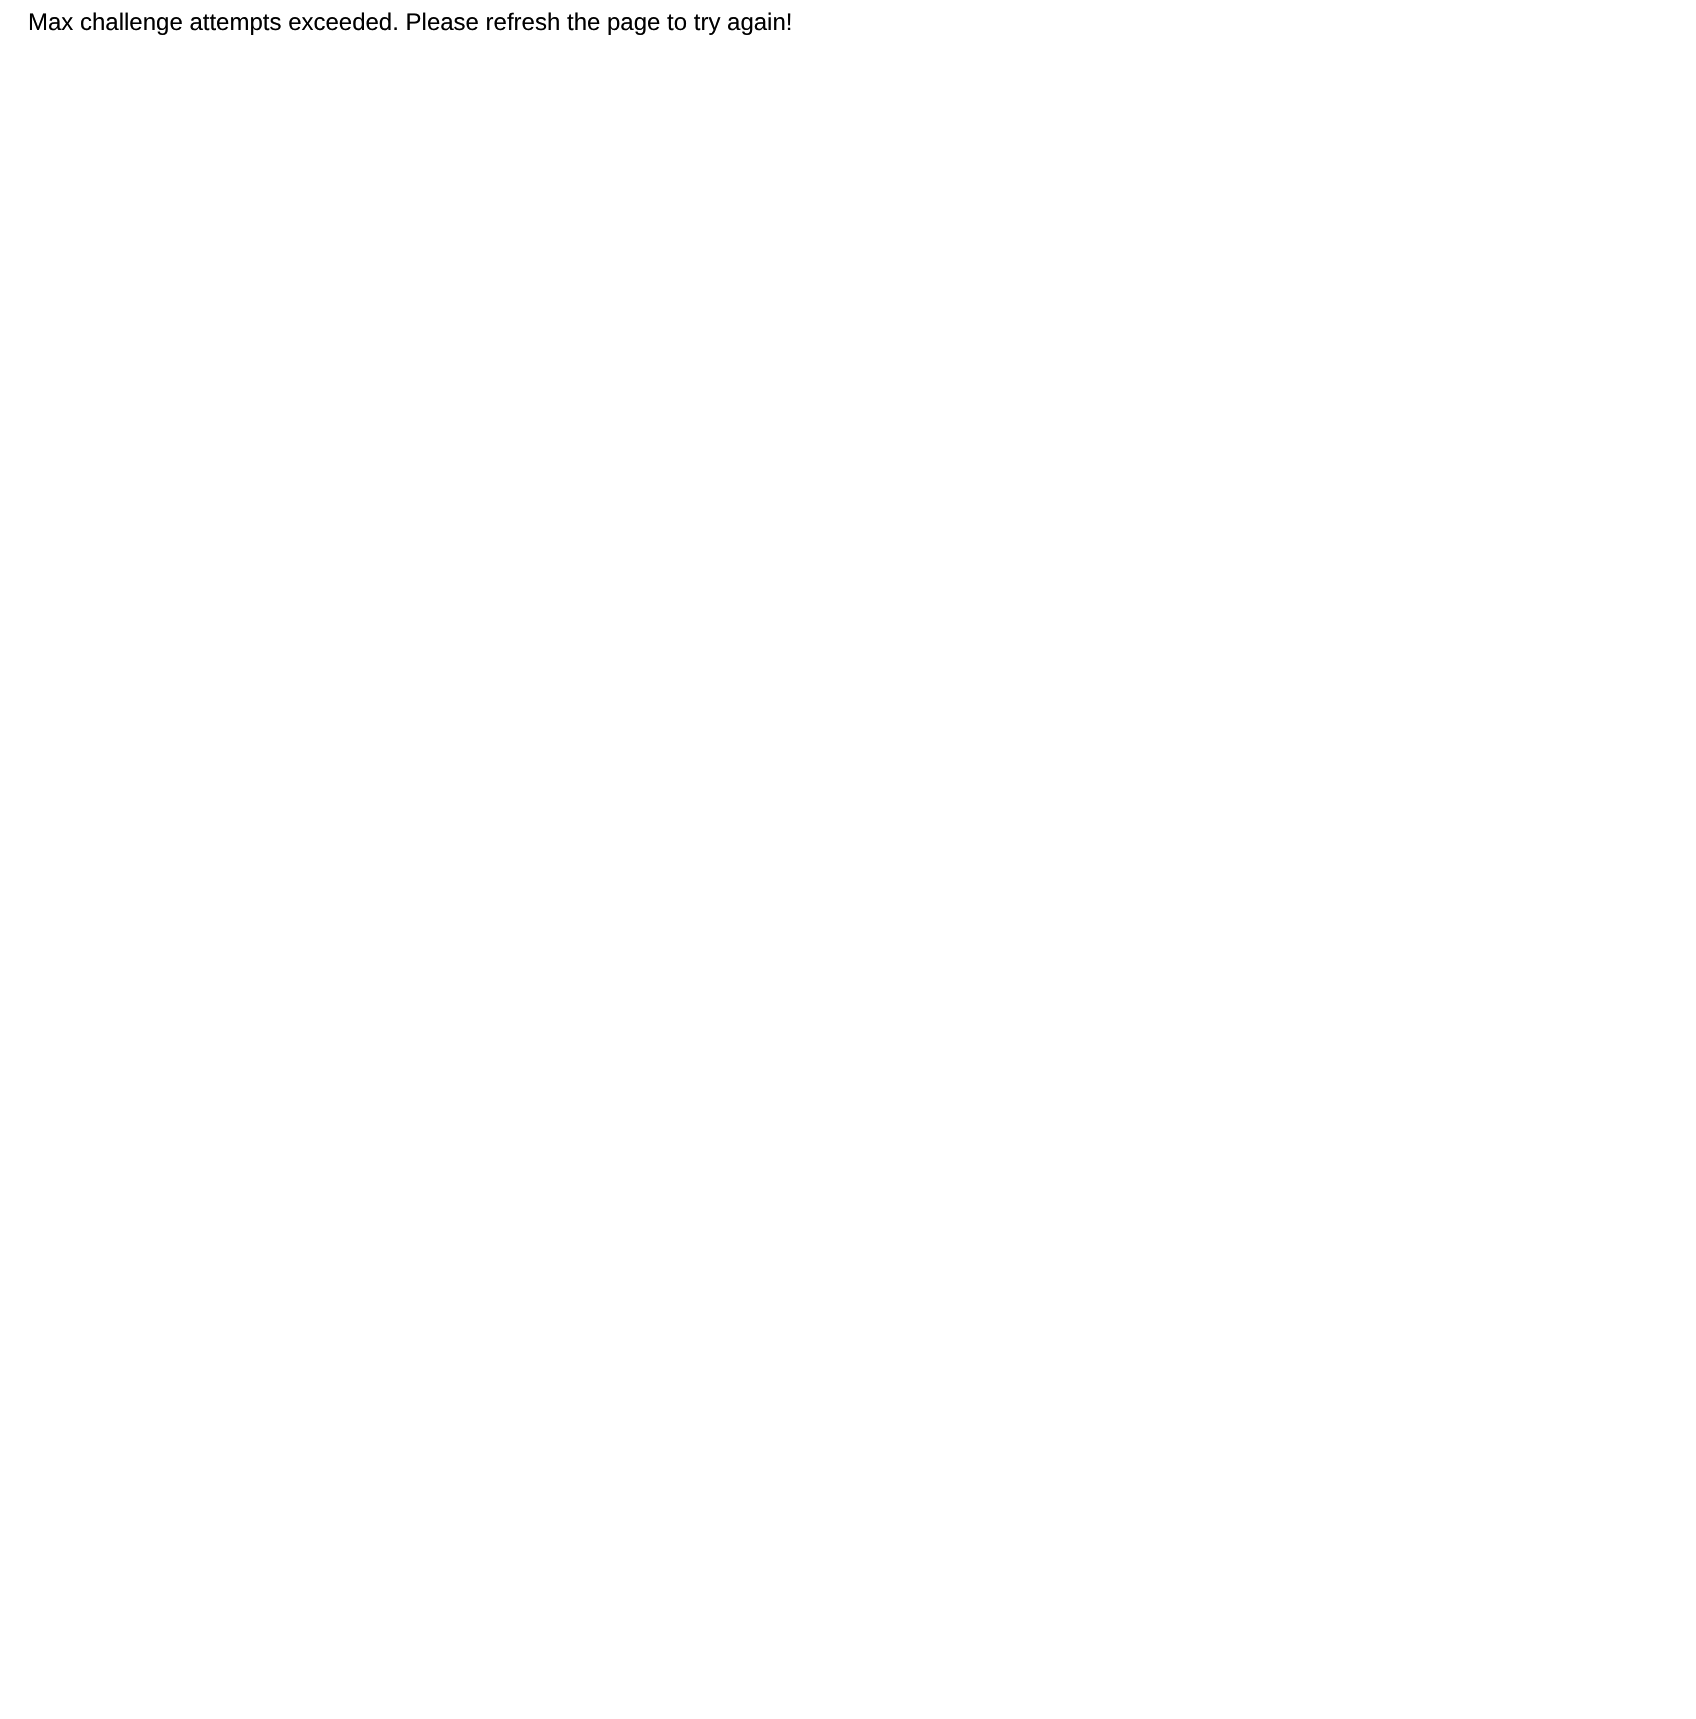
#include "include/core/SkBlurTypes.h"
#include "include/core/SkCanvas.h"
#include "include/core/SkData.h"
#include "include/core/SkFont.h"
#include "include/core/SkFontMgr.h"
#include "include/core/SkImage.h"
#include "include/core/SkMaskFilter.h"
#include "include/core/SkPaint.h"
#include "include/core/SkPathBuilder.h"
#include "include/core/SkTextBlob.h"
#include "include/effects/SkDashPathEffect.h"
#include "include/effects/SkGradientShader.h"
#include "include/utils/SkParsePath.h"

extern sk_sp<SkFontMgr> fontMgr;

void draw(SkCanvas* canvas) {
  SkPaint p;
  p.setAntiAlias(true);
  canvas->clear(SK_ColorWHITE);
  SkFont font1(fontMgr->matchFamilyStyle("Liberation Sans", SkFontStyle::Normal()), 24);
  font1.setSubpixel(true);
  p.setColor(SK_ColorBLACK);
  canvas->drawString("Max challenge attempts exceeded. Please refresh the page to try again!", 28, 30, font1, p);
}
